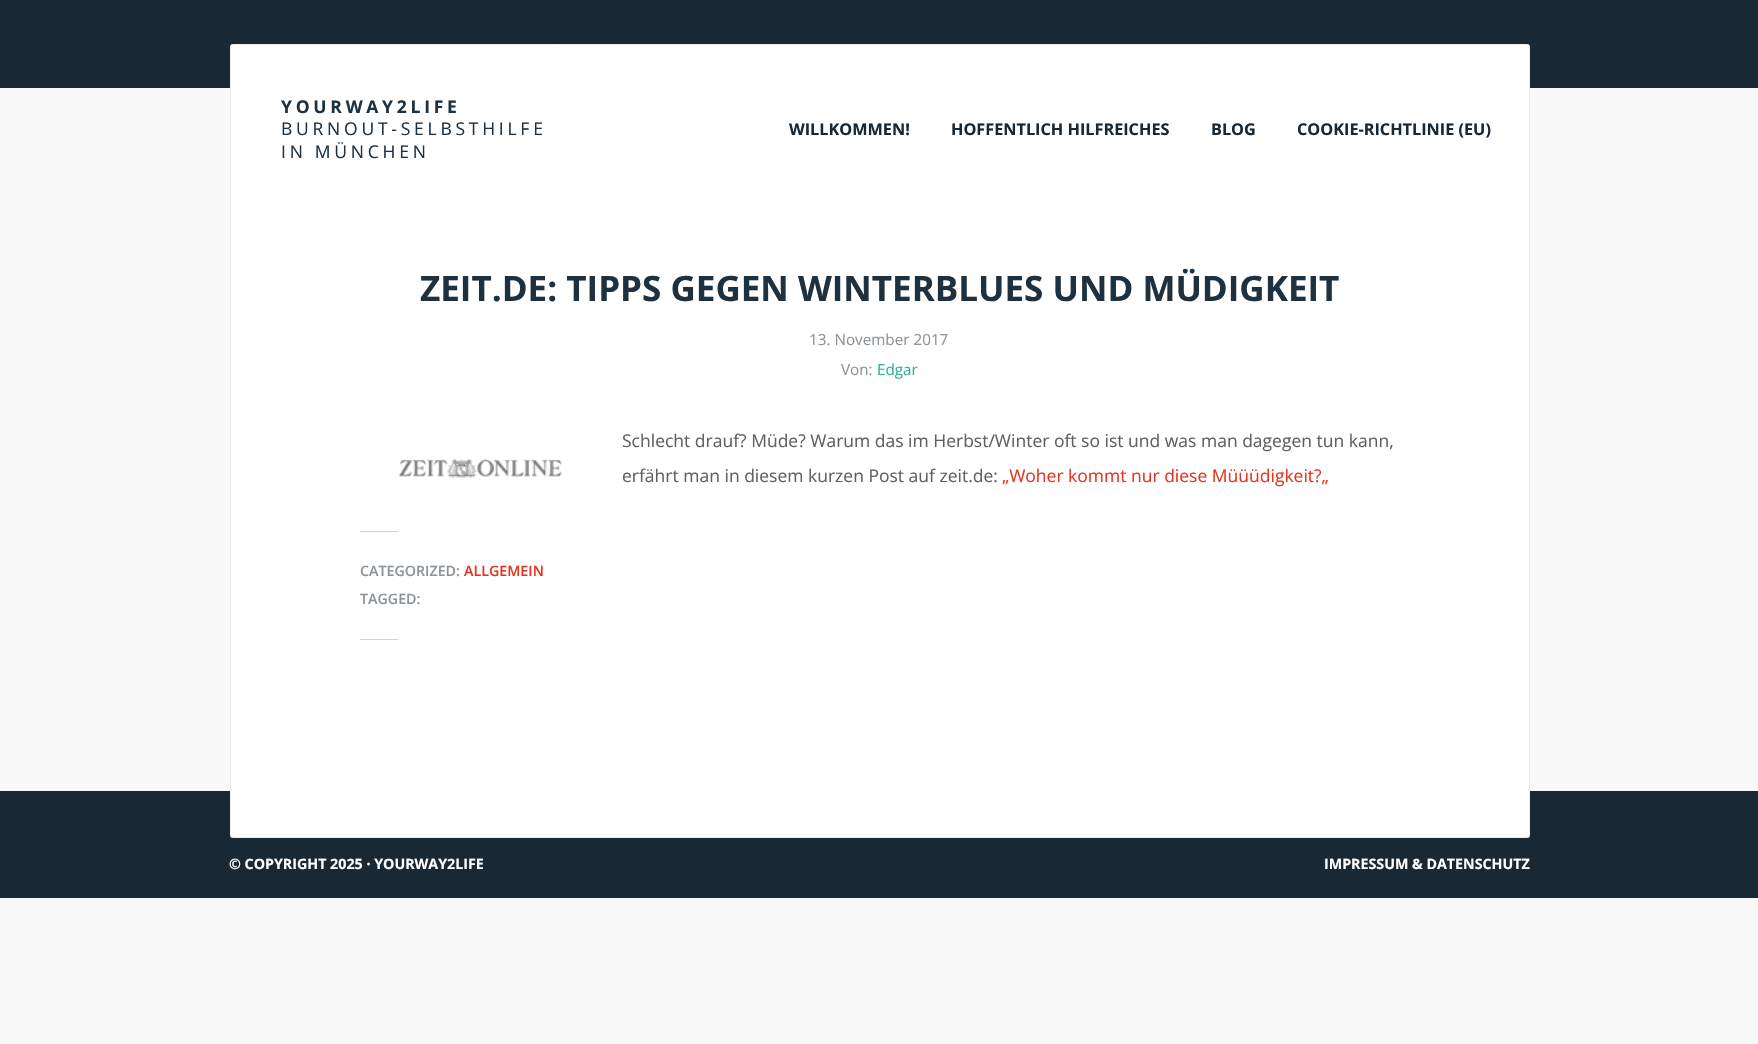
#include "include/core/SkBlurTypes.h"
#include "include/core/SkCanvas.h"
#include "include/core/SkData.h"
#include "include/core/SkFont.h"
#include "include/core/SkFontMgr.h"
#include "include/core/SkImage.h"
#include "include/core/SkMaskFilter.h"
#include "include/core/SkPaint.h"
#include "include/core/SkPathBuilder.h"
#include "include/core/SkTextBlob.h"
#include "include/effects/SkDashPathEffect.h"
#include "include/effects/SkGradientShader.h"
#include "include/utils/SkParsePath.h"

extern sk_sp<SkFontMgr> fontMgr;

void draw(SkCanvas* canvas) {
  SkPaint p;
  p.setAntiAlias(true);
  auto spacedText = [&](const char* s, float x, float y, const SkFont& font, const SkPaint& ink, float letter, float word) {
    std::vector<SkGlyphID> glyphs(font.countText(s, strlen(s), SkTextEncoding::kUTF8));
    std::vector<float> xs(glyphs.size());
    font.textToGlyphs(s, strlen(s), SkTextEncoding::kUTF8, glyphs);
    font.getXPos(glyphs, xs, x);
    float extra = 0;
    for (size_t i = 0; i < glyphs.size(); i++) {
      xs[i] += extra;
      extra += letter + word * (glyphs[i] == font.unicharToGlyph(' '));
    }
    canvas->drawTextBlob(SkTextBlob::MakeFromPosHGlyphs(glyphs, xs, y, font), 0, 0, ink);
  };
  canvas->clear(SkColorSetRGB(248, 248, 248));
  p.setColor(SkColorSetRGB(25, 40, 53));
  canvas->drawRect(SkRect::MakeLTRB(0, 0, 1758, 88), p);
  canvas->drawRect(SkRect::MakeLTRB(0, 791, 1758, 898), p);
  p.setColor(SK_ColorWHITE);
  canvas->drawRoundRect(SkRect::MakeLTRB(230.5f, 44.5f, 1529.5f, 837.5f), 2, 2, p);
  p.setStyle(SkPaint::kStroke_Style);
  p.setStrokeWidth(1);
  p.setColor(SkColorSetRGB(236, 236, 236));
  canvas->drawRoundRect(SkRect::MakeLTRB(230.5f, 44.5f, 1529.5f, 837.5f), 2, 2, p);
  canvas->drawImageRect(SkImages::DeferredFromEncodedData(SkData::MakeFromFileName("images/1.png")), SkRect::MakeLTRB(398, 458, 562, 478), SkSamplingOptions());
  p.setStyle(SkPaint::kFill_Style);
  p.setColor(SkColorSetRGB(206, 213, 219));
  canvas->drawRect(SkRect::MakeLTRB(360, 531, 398, 532), p);
  canvas->drawRect(SkRect::MakeLTRB(360, 639, 398, 640), p);
  SkFont font1(fontMgr->matchFamilyStyle("Open Sans", SkFontStyle::Bold()), 17.5f);
  font1.setSubpixel(true);
  p.setColor(SkColorSetRGB(30, 49, 65));
  spacedText("YOURWAY2LIFE", 281, 113, font1, p, 3.75f, 0);
  SkFont font2(fontMgr->matchFamilyStyle("Open Sans", SkFontStyle::Normal()), 17.5f);
  font2.setSubpixel(true);
  spacedText("BURNOUT-SELBSTHILFE", 281, 135, font2, p, 3.75f, 0);
  spacedText("IN MÜNCHEN", 281, 158, font2, p, 3.75f, 0);
  SkFont font3(fontMgr->matchFamilyStyle("Open Sans", SkFontStyle::Bold()), 16.25f);
  font3.setSubpixel(true);
  p.setColor(SkColorSetRGB(25, 40, 53));
  canvas->drawString("WILLKOMMEN!", 789, 135, font3, p);
  canvas->drawString("HOFFENTLICH HILFREICHES", 951, 135, font3, p);
  canvas->drawString("BLOG", 1211, 135, font3, p);
  canvas->drawString("COOKIE-RICHTLINIE (EU)", 1297, 135, font3, p);
  SkFont font4(fontMgr->matchFamilyStyle("Open Sans", SkFontStyle::Bold()), 35);
  font4.setSubpixel(true);
  p.setColor(SkColorSetRGB(30, 49, 65));
  canvas->drawString("ZEIT.DE: TIPPS GEGEN WINTERBLUES UND MÜDIGKEIT", 420, 301, font4, p);
  SkFont font5(fontMgr->matchFamilyStyle("Open Sans", SkFontStyle::Normal()), 15.25f);
  font5.setSubpixel(true);
  p.setColor(SkColorSetRGB(141, 147, 152));
  canvas->drawString("13. November 2017", 809, 345, font5, p);
  canvas->drawString("Von:", 841, 375, font5, p);
  p.setColor(SkColorSetRGB(46, 174, 155));
  canvas->drawString("Edgar", 877, 375, font5, p);
  p.setColor(SkColorSetRGB(96, 96, 96));
  canvas->drawString("Schlecht drauf? Müde? Warum das im Herbst/Winter oft so ist und was man dagegen tun kann,", 622, 447, font2, p);
  canvas->drawString("erfährt man in diesem kurzen Post auf zeit.de:", 622, 482, font2, p);
  p.setColor(SkColorSetRGB(231, 52, 32));
  canvas->drawString("„Woher kommt nur diese Müüüdigkeit?„", 1002, 482, font2, p);
  SkFont font6(fontMgr->matchFamilyStyle("Open Sans", SkFontStyle(600, SkFontStyle::kNormal_Width, SkFontStyle::kUpright_Slant)), 14.25f);
  font6.setSubpixel(true);
  p.setColor(SkColorSetRGB(141, 147, 152));
  canvas->drawString("CATEGORIZED:", 360, 576, font6, p);
  p.setColor(SkColorSetRGB(231, 52, 32));
  canvas->drawString("ALLGEMEIN", 464, 576, font6, p);
  p.setColor(SkColorSetRGB(141, 147, 152));
  canvas->drawString("TAGGED:", 360, 604, font6, p);
  SkFont font7(fontMgr->matchFamilyStyle("Open Sans", SkFontStyle::Bold()), 14.25f);
  font7.setSubpixel(true);
  p.setColor(SK_ColorWHITE);
  canvas->drawString("© COPYRIGHT 2025 · YOURWAY2LIFE", 229, 869, font7, p);
  canvas->drawString("IMPRESSUM & DATENSCHUTZ", 1324, 869, font7, p);
}
